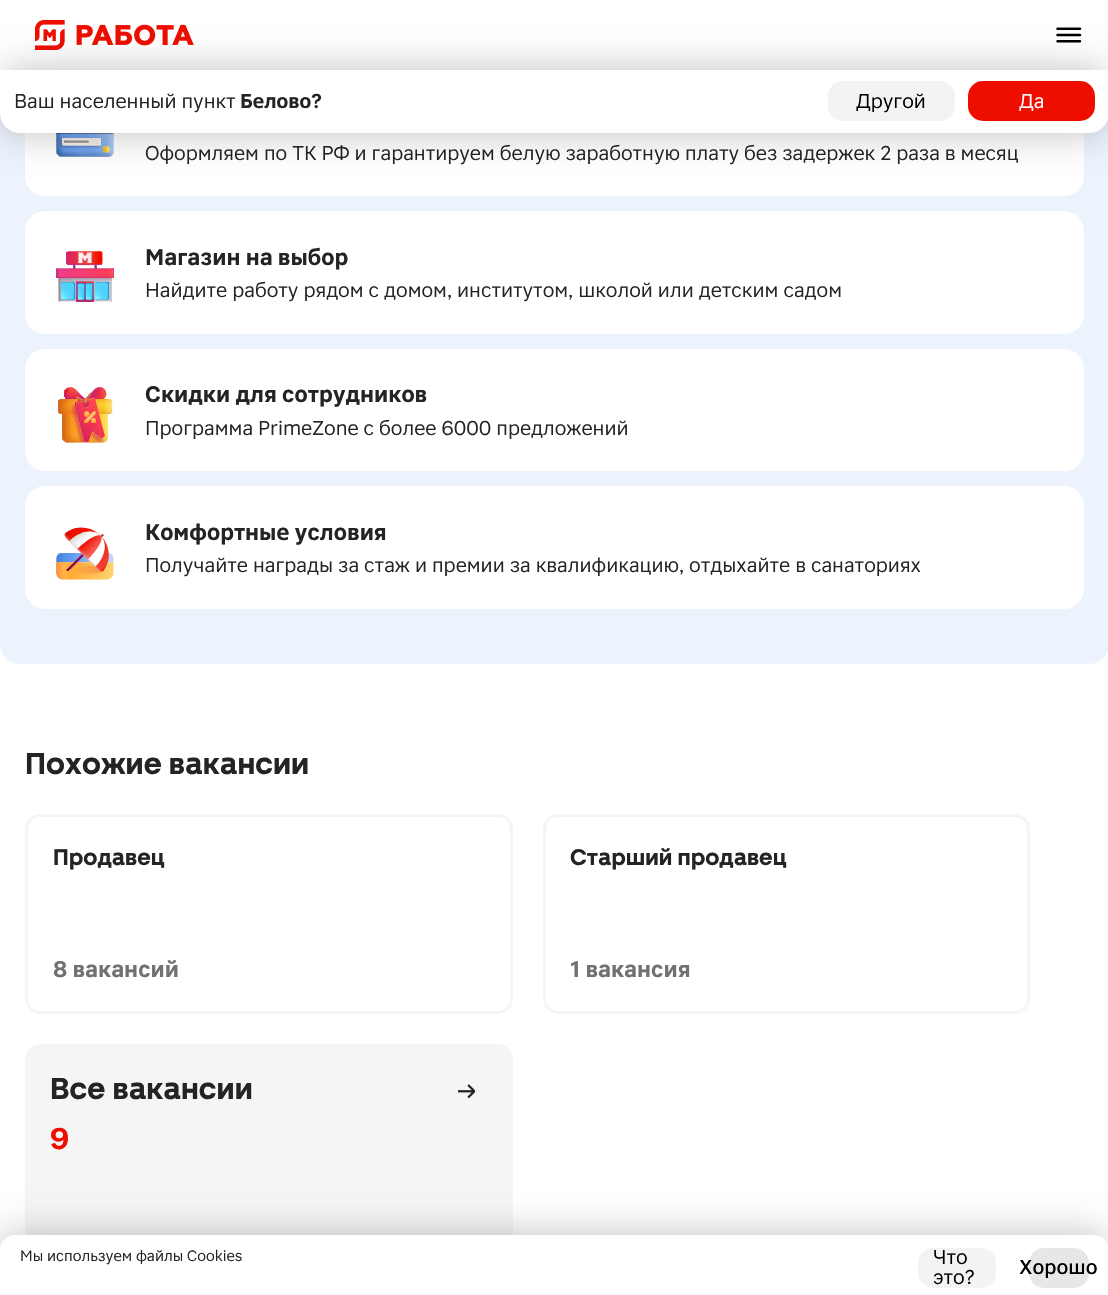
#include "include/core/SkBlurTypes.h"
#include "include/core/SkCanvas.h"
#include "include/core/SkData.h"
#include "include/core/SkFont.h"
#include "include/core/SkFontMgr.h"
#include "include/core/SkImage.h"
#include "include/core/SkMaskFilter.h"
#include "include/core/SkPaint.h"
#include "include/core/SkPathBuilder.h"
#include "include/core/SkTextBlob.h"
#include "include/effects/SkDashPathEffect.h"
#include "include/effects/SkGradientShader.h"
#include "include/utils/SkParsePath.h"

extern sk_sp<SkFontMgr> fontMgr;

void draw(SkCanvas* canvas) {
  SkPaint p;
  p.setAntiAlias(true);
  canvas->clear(SK_ColorWHITE);
  p.setColor(SkColorSetRGB(237, 243, 253));
  canvas->drawRoundRect(SkRect::MakeLTRB(0, -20, 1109, 664), 20, 20, p);
  p.setColor(SK_ColorWHITE);
  canvas->drawRect(SkRect::MakeLTRB(0, 0, 1108, 70), p);
  canvas->drawImageRect(SkImages::DeferredFromEncodedData(SkData::MakeFromFileName("images/1.png")), SkRect::MakeLTRB(35, 20, 194, 50), SkSamplingOptions());
  canvas->drawImageRect(SkImages::DeferredFromEncodedData(SkData::MakeFromFileName("images/2.png")), SkRect::MakeLTRB(1056, 27, 1082, 43), SkSamplingOptions());
  canvas->drawRoundRect(SkRect::MakeLTRB(25, 74, 1084, 196), 20, 20, p);
  canvas->drawImageRect(SkImages::DeferredFromEncodedData(SkData::MakeFromFileName("images/3.png")), SkRect::MakeLTRB(56, 133, 114, 157), SkSamplingOptions());
  p.setColor(SkColorSetARGB(64, 0, 0, 0));
  p.setMaskFilter(SkMaskFilter::MakeBlur(kNormal_SkBlurStyle, 19));
  canvas->drawRoundRect(SkRect::MakeLTRB(0, 70, 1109, 133), 20, 20, p);
  p.setMaskFilter(nullptr);
  p.setColor(SK_ColorWHITE);
  canvas->drawPath(SkPathBuilder().moveTo(0, 70).lineTo(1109, 70).lineTo(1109, 113).cubicTo(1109, 124, 1100, 133, 1089, 133).lineTo(20, 133).cubicTo(9, 133, 0, 124, 0, 113).close().detach(), p);
  p.setColor(SkColorSetRGB(243, 243, 243));
  canvas->drawRoundRect(SkRect::MakeLTRB(828, 81, 955, 121), 15, 15, p);
  p.setColor(SkColorSetRGB(237, 14, 0));
  canvas->drawRoundRect(SkRect::MakeLTRB(968, 81, 1095, 121), 15, 15, p);
  p.setColor(SK_ColorWHITE);
  canvas->drawRoundRect(SkRect::MakeLTRB(25, 211, 1084, 334), 20, 20, p);
  canvas->drawImageRect(SkImages::DeferredFromEncodedData(SkData::MakeFromFileName("images/4.png")), SkRect::MakeLTRB(56, 250, 114, 302), SkSamplingOptions());
  canvas->drawRoundRect(SkRect::MakeLTRB(25, 349, 1084, 471), 20, 20, p);
  canvas->drawImageRect(SkImages::DeferredFromEncodedData(SkData::MakeFromFileName("images/5.png")), SkRect::MakeLTRB(58, 387, 114, 443), SkSamplingOptions());
  canvas->drawRoundRect(SkRect::MakeLTRB(25, 486, 1084, 609), 20, 20, p);
  canvas->drawImageRect(SkImages::DeferredFromEncodedData(SkData::MakeFromFileName("images/6.png")), SkRect::MakeLTRB(56, 527, 114, 580), SkSamplingOptions());
  p.setStyle(SkPaint::kStroke_Style);
  p.setStrokeWidth(3);
  p.setColor(SkColorSetRGB(245, 245, 245));
  canvas->drawRoundRect(SkRect::MakeLTRB(26.5f, 815.5f, 511.5f, 1012.5f), 13.5f, 13.5f, p);
  canvas->drawRoundRect(SkRect::MakeLTRB(544.5f, 815.5f, 1028.5f, 1012.5f), 13.5f, 13.5f, p);
  p.setStyle(SkPaint::kFill_Style);
  canvas->drawRoundRect(SkRect::MakeLTRB(25, 1044, 513, 1244), 15, 15, p);
  canvas->drawImageRect(SkImages::DeferredFromEncodedData(SkData::MakeFromFileName("images/7.png")), SkRect::MakeLTRB(458, 1084, 475, 1098), SkSamplingOptions());
  p.setColor(SkColorSetARGB(64, 0, 0, 0));
  p.setMaskFilter(SkMaskFilter::MakeBlur(kNormal_SkBlurStyle, 19));
  canvas->drawRoundRect(SkRect::MakeLTRB(0, 1235, 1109, 1295), 15, 15, p);
  p.setMaskFilter(nullptr);
  p.setColor(SK_ColorWHITE);
  canvas->drawPath(SkPathBuilder().moveTo(15, 1235).lineTo(1094, 1235).cubicTo(1102.5f, 1235, 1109, 1241.5f, 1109, 1250).lineTo(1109, 1295).lineTo(0, 1295).lineTo(0, 1250).cubicTo(0, 1241.5f, 6.5f, 1235, 15, 1235).close().detach(), p);
  p.setColor(SkColorSetRGB(243, 243, 243));
  canvas->drawRoundRect(SkRect::MakeLTRB(918, 1248, 996, 1288), 15, 15, p);
  p.setColor(SkColorSetRGB(231, 231, 231));
  canvas->drawRoundRect(SkRect::MakeLTRB(1029, 1248, 1089, 1288), 15, 15, p);
  SkFont font1(fontMgr->matchFamilyStyle("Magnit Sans", SkFontStyle::Normal()), 20);
  font1.setSubpixel(true);
  p.setColor(SkColorSetRGB(36, 36, 36));
  canvas->drawString("Ваш населенный пункт", 14, 108, font1, p);
  SkFont font2(fontMgr->matchFamilyStyle("Magnit Sans", SkFontStyle::Bold()), 20);
  font2.setSubpixel(true);
  canvas->drawString("Белово?", 240, 108, font2, p);
  p.setColor(SK_ColorBLACK);
  canvas->drawString("Другой", 856, 108, font1, p);
  p.setColor(SK_ColorWHITE);
  canvas->drawString("Да", 1019, 108, font1, p);
  p.setColor(SkColorSetRGB(36, 36, 36));
  canvas->drawString("Оформляем по ТК РФ и гарантируем белую заработную плату без задержек 2 раза в месяц", 145, 160, font1, p);
  SkFont font3(fontMgr->matchFamilyStyle("Magnit Sans", SkFontStyle::Bold()), 22.5f);
  font3.setSubpixel(true);
  canvas->drawString("Магазин на выбор", 145, 265, font3, p);
  canvas->drawString("Найдите работу рядом с домом, институтом, школой или детским садом", 145, 297, font1, p);
  canvas->drawString("Скидки для сотрудников", 145, 402, font3, p);
  canvas->drawString("Программа PrimeZone с более 6000 предложений", 145, 435, font1, p);
  canvas->drawString("Комфортные условия", 145, 540, font3, p);
  canvas->drawString("Получайте награды за стаж и премии за квалификацию, отдыхайте в санаториях", 145, 572, font1, p);
  SkFont font4(fontMgr->matchFamilyStyle("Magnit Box", SkFontStyle::Bold()), 30);
  font4.setSubpixel(true);
  canvas->drawString("Похожие вакансии", 25, 774, font4, p);
  SkFont font5(fontMgr->matchFamilyStyle("Magnit Box", SkFontStyle::Bold()), 22.5f);
  font5.setSubpixel(true);
  canvas->drawString("Продавец", 53, 865, font5, p);
  p.setColor(SkColorSetRGB(113, 113, 113));
  canvas->drawString("8 вакансий", 53, 977, font3, p);
  p.setColor(SkColorSetRGB(36, 36, 36));
  canvas->drawString("Старший продавец", 570, 865, font5, p);
  p.setColor(SkColorSetRGB(113, 113, 113));
  canvas->drawString("1 вакансия", 570, 977, font3, p);
  p.setColor(SkColorSetRGB(36, 36, 36));
  canvas->drawString("Все вакансии", 50, 1099, font4, p);
  SkFont font6(fontMgr->matchFamilyStyle("Magnit Sans", SkFontStyle::Bold()), 30);
  font6.setSubpixel(true);
  p.setColor(SkColorSetRGB(237, 14, 0));
  canvas->drawString("9", 50, 1149, font6, p);
  SkFont font7(fontMgr->matchFamilyStyle("Magnit Sans", SkFontStyle::Normal()), 15);
  font7.setSubpixel(true);
  p.setColor(SkColorSetRGB(36, 36, 36));
  canvas->drawString("Мы используем файлы Cookies", 20, 1261, font7, p);
  p.setColor(SK_ColorBLACK);
  canvas->drawString("Что", 933, 1264, font1, p);
  canvas->drawString("это?", 933, 1284, font1, p);
  SkFont font8(fontMgr->matchFamilyStyle("Magnit Sans", SkFontStyle(500, SkFontStyle::kNormal_Width, SkFontStyle::kUpright_Slant)), 20);
  font8.setSubpixel(true);
  canvas->drawString("Хорошо", 1019, 1274, font8, p);
}
